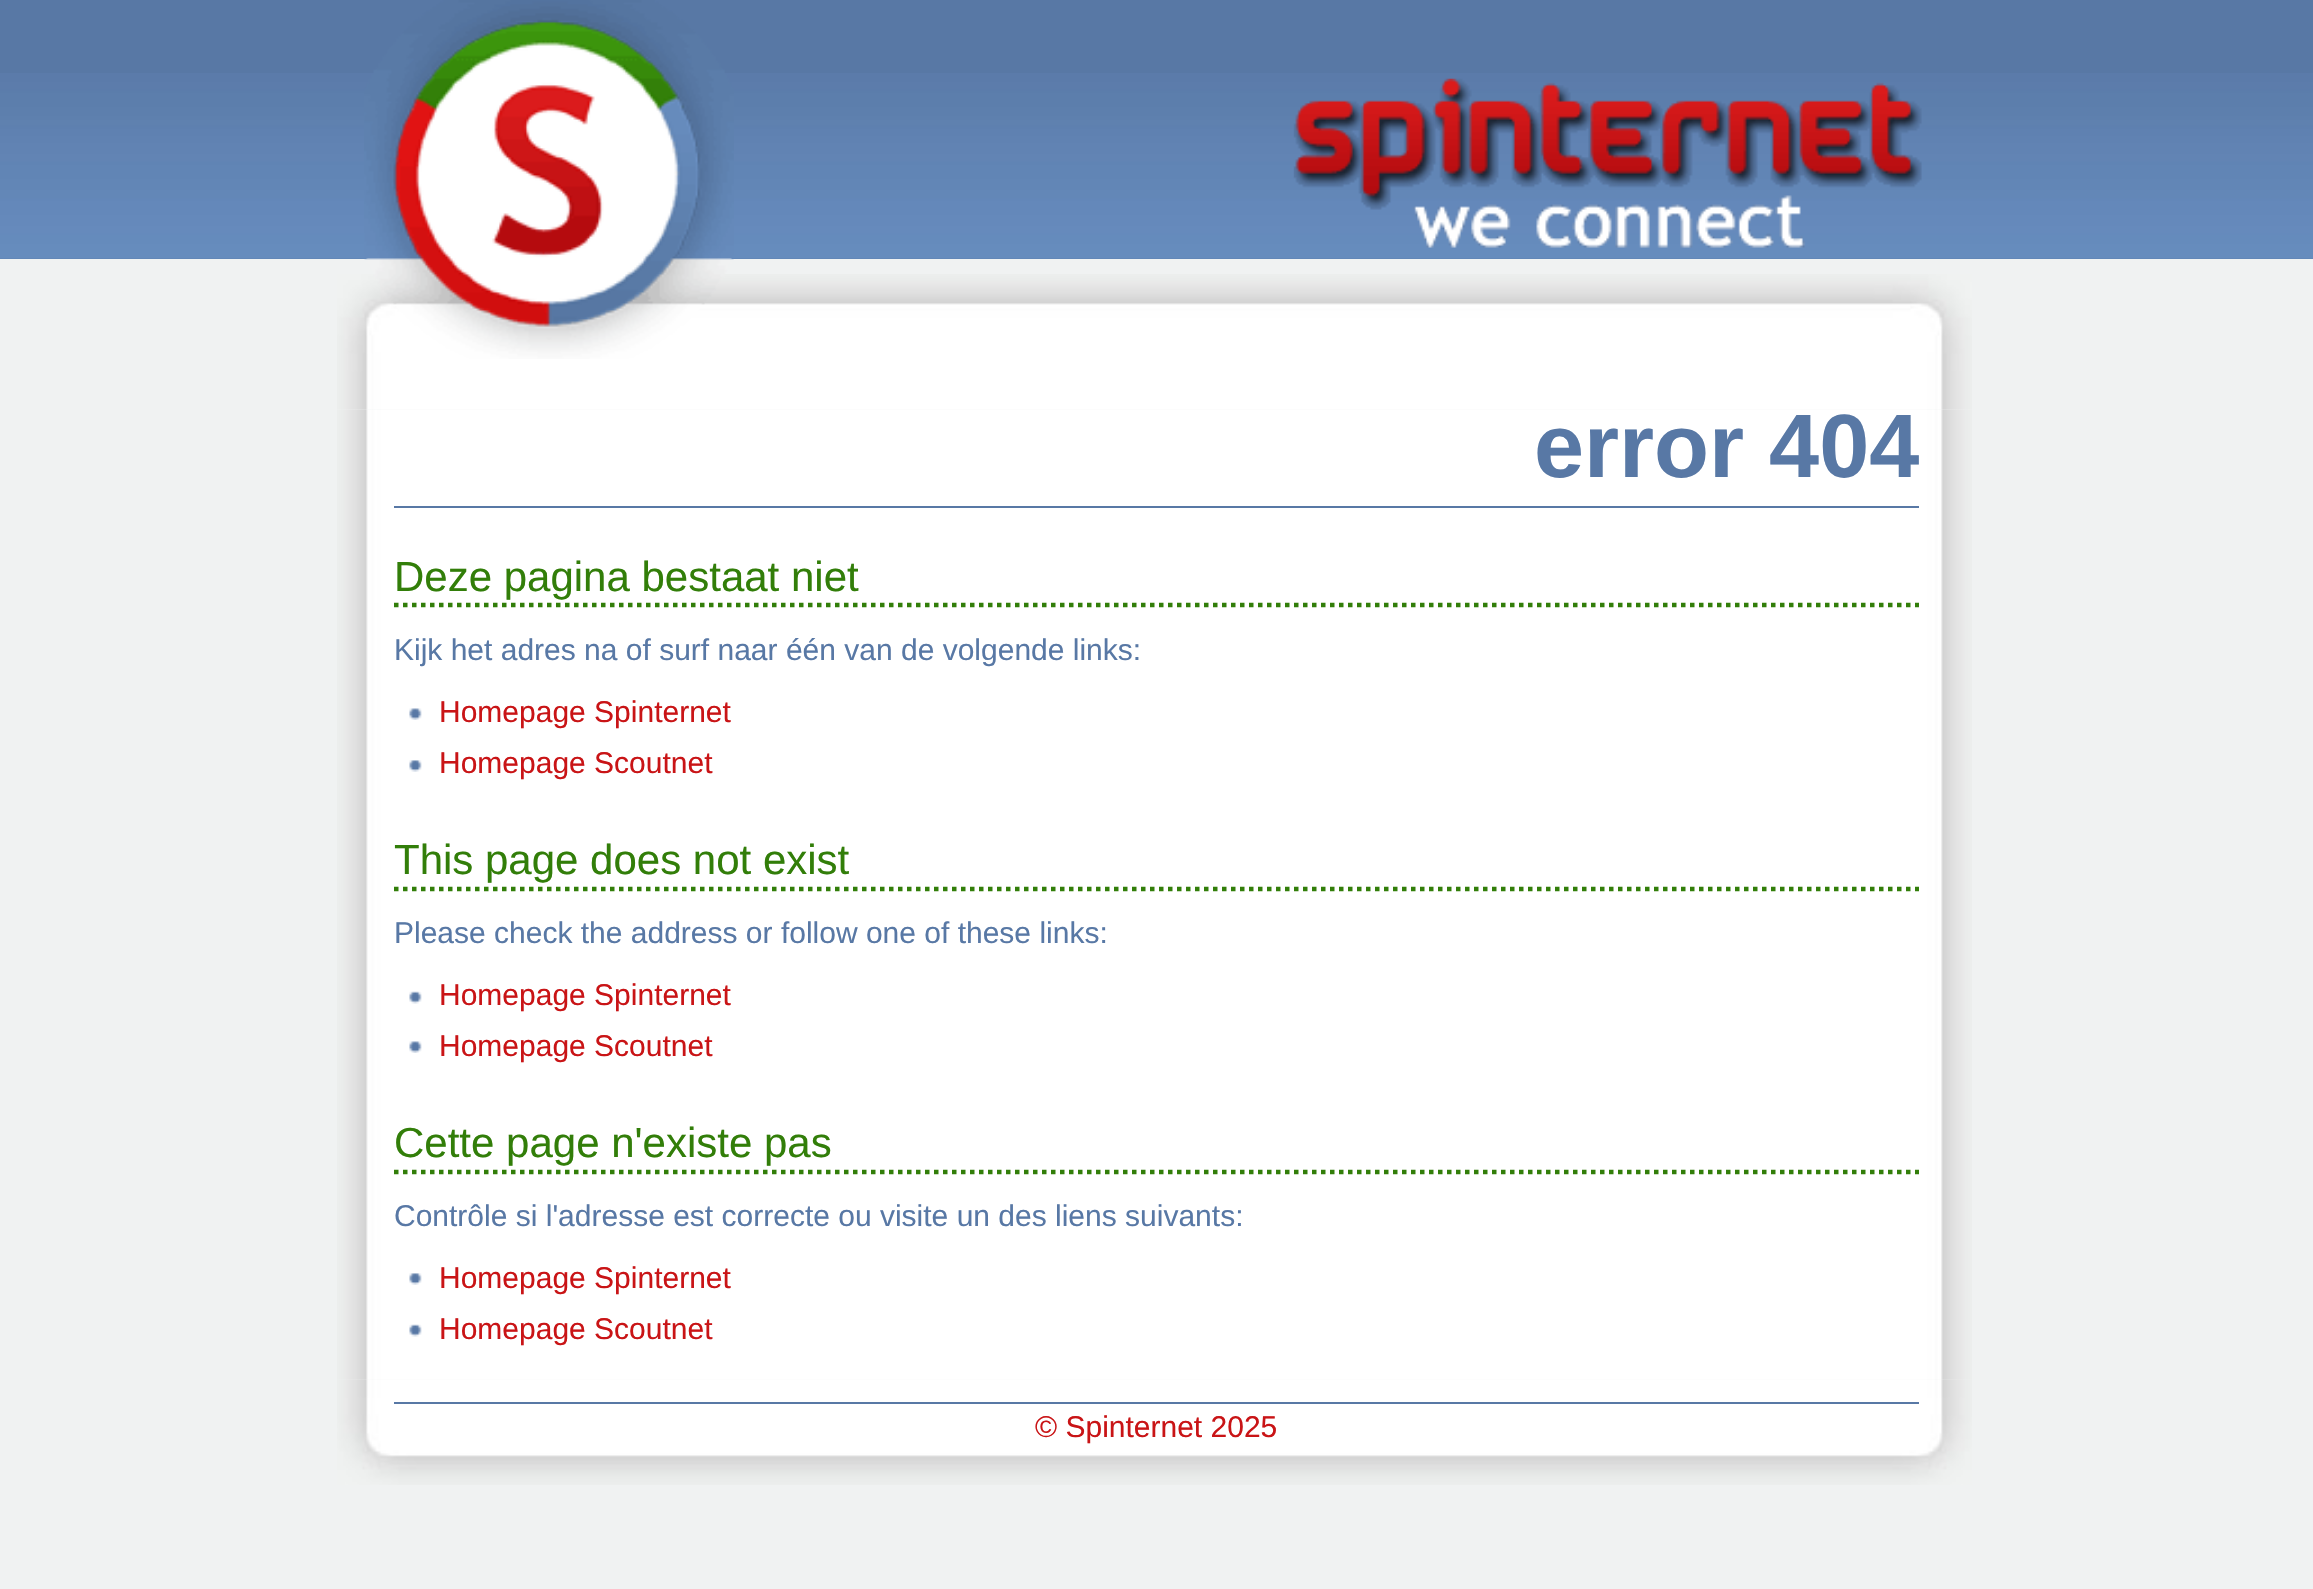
#include "include/core/SkBlurTypes.h"
#include "include/core/SkCanvas.h"
#include "include/core/SkData.h"
#include "include/core/SkFont.h"
#include "include/core/SkFontMgr.h"
#include "include/core/SkImage.h"
#include "include/core/SkMaskFilter.h"
#include "include/core/SkPaint.h"
#include "include/core/SkPathBuilder.h"
#include "include/core/SkTextBlob.h"
#include "include/effects/SkDashPathEffect.h"
#include "include/effects/SkGradientShader.h"
#include "include/utils/SkParsePath.h"

extern sk_sp<SkFontMgr> fontMgr;

void draw(SkCanvas* canvas) {
  SkPaint p;
  p.setAntiAlias(true);
  canvas->clear(SkColorSetRGB(240, 242, 242));
  p.setColor(SkColorSetRGB(88, 120, 165));
  canvas->drawRect(SkRect::MakeLTRB(0, 0, 2313, 259), p);
  canvas->drawImageRect(SkImages::DeferredFromEncodedData(SkData::MakeFromFileName("images/1.png")), SkRect::MakeLTRB(0, 73, 2313, 259), SkSamplingOptions());
  canvas->drawImageRect(SkImages::DeferredFromEncodedData(SkData::MakeFromFileName("images/4.png")), SkRect::MakeLTRB(337, 274, 1972, 410), SkSamplingOptions());
  canvas->drawImageRect(SkImages::DeferredFromEncodedData(SkData::MakeFromFileName("images/2.png")), SkRect::MakeLTRB(364, 0, 734, 359), SkSamplingOptions());
  canvas->drawImageRect(SkImages::DeferredFromEncodedData(SkData::MakeFromFileName("images/3.png")), SkRect::MakeLTRB(1293, 78, 1922, 248), SkSamplingOptions());
  canvas->drawImageRect(SkImages::DeferredFromEncodedData(SkData::MakeFromFileName("images/5.png")), SkRect::MakeLTRB(337, 409, 1972, 1380), SkSamplingOptions());
  canvas->drawRect(SkRect::MakeLTRB(394, 506, 1919, 508), p);
  p.setStyle(SkPaint::kStroke_Style);
  p.setStrokeWidth(4.5f);
  p.setColor(SkColorSetRGB(50, 126, 9));
  p.setPathEffect(SkDashPathEffect::Make({{4.5f, 4.5f}}, 0));
  canvas->drawPath(SkPathBuilder().moveTo(394, 605).lineTo(1919, 605).detach(), p);
  p.setPathEffect(nullptr);
  canvas->drawImageRect(SkImages::DeferredFromEncodedData(SkData::MakeFromFileName("images/6.png")), SkRect::MakeLTRB(409, 708, 422, 720), SkSamplingOptions());
  canvas->drawImageRect(SkImages::DeferredFromEncodedData(SkData::MakeFromFileName("images/7.png")), SkRect::MakeLTRB(409, 760, 422, 772), SkSamplingOptions());
  p.setPathEffect(SkDashPathEffect::Make({{4.5f, 4.5f}}, 0));
  canvas->drawPath(SkPathBuilder().moveTo(394, 889).lineTo(1919, 889).detach(), p);
  p.setPathEffect(nullptr);
  canvas->drawImageRect(SkImages::DeferredFromEncodedData(SkData::MakeFromFileName("images/8.png")), SkRect::MakeLTRB(409, 991, 422, 1004), SkSamplingOptions());
  canvas->drawImageRect(SkImages::DeferredFromEncodedData(SkData::MakeFromFileName("images/6.png")), SkRect::MakeLTRB(409, 1041, 422, 1053), SkSamplingOptions());
  p.setPathEffect(SkDashPathEffect::Make({{4.5f, 4.5f}}, 0));
  canvas->drawPath(SkPathBuilder().moveTo(394, 1172).lineTo(1919, 1172).detach(), p);
  p.setPathEffect(nullptr);
  canvas->drawImageRect(SkImages::DeferredFromEncodedData(SkData::MakeFromFileName("images/7.png")), SkRect::MakeLTRB(409, 1273, 422, 1285), SkSamplingOptions());
  canvas->drawImageRect(SkImages::DeferredFromEncodedData(SkData::MakeFromFileName("images/8.png")), SkRect::MakeLTRB(409, 1324, 422, 1337), SkSamplingOptions());
  canvas->drawImageRect(SkImages::DeferredFromEncodedData(SkData::MakeFromFileName("images/9.png")), SkRect::MakeLTRB(337, 1379, 1972, 1485), SkSamplingOptions());
  p.setStyle(SkPaint::kFill_Style);
  p.setColor(SkColorSetRGB(88, 120, 165));
  canvas->drawRect(SkRect::MakeLTRB(394, 1402, 1919, 1404), p);
  SkFont font1(fontMgr->matchFamilyStyle("Liberation Sans", SkFontStyle::Bold()), 90);
  font1.setSubpixel(true);
  canvas->drawString("error 404", 1534, 477, font1, p);
  SkFont font2(fontMgr->matchFamilyStyle("Liberation Sans", SkFontStyle::Normal()), 42);
  font2.setSubpixel(true);
  p.setColor(SkColorSetRGB(50, 126, 9));
  canvas->drawString("Deze pagina bestaat niet", 394, 591, font2, p);
  SkFont font3(fontMgr->matchFamilyStyle("Liberation Sans", SkFontStyle::Normal()), 30);
  font3.setSubpixel(true);
  p.setColor(SkColorSetRGB(88, 120, 165));
  canvas->drawString("Kijk het adres na of surf naar één van de volgende links:", 394, 660, font3, p);
  p.setColor(SkColorSetRGB(201, 20, 22));
  canvas->drawString("Homepage Spinternet", 439, 722, font3, p);
  canvas->drawString("Homepage Scoutnet", 439, 773, font3, p);
  p.setColor(SkColorSetRGB(50, 126, 9));
  canvas->drawString("This page does not exist", 394, 874, font2, p);
  p.setColor(SkColorSetRGB(88, 120, 165));
  canvas->drawString("Please check the address or follow one of these links:", 394, 943, font3, p);
  p.setColor(SkColorSetRGB(201, 20, 22));
  canvas->drawString("Homepage Spinternet", 439, 1005, font3, p);
  canvas->drawString("Homepage Scoutnet", 439, 1056, font3, p);
  p.setColor(SkColorSetRGB(50, 126, 9));
  canvas->drawString("Cette page n'existe pas", 394, 1157, font2, p);
  p.setColor(SkColorSetRGB(88, 120, 165));
  canvas->drawString("Contrôle si l'adresse est correcte ou visite un des liens suivants:", 394, 1226, font3, p);
  p.setColor(SkColorSetRGB(201, 20, 22));
  canvas->drawString("Homepage Spinternet", 439, 1288, font3, p);
  canvas->drawString("Homepage Scoutnet", 439, 1339, font3, p);
  canvas->drawString("© Spinternet 2025", 1035, 1437, font3, p);
}
